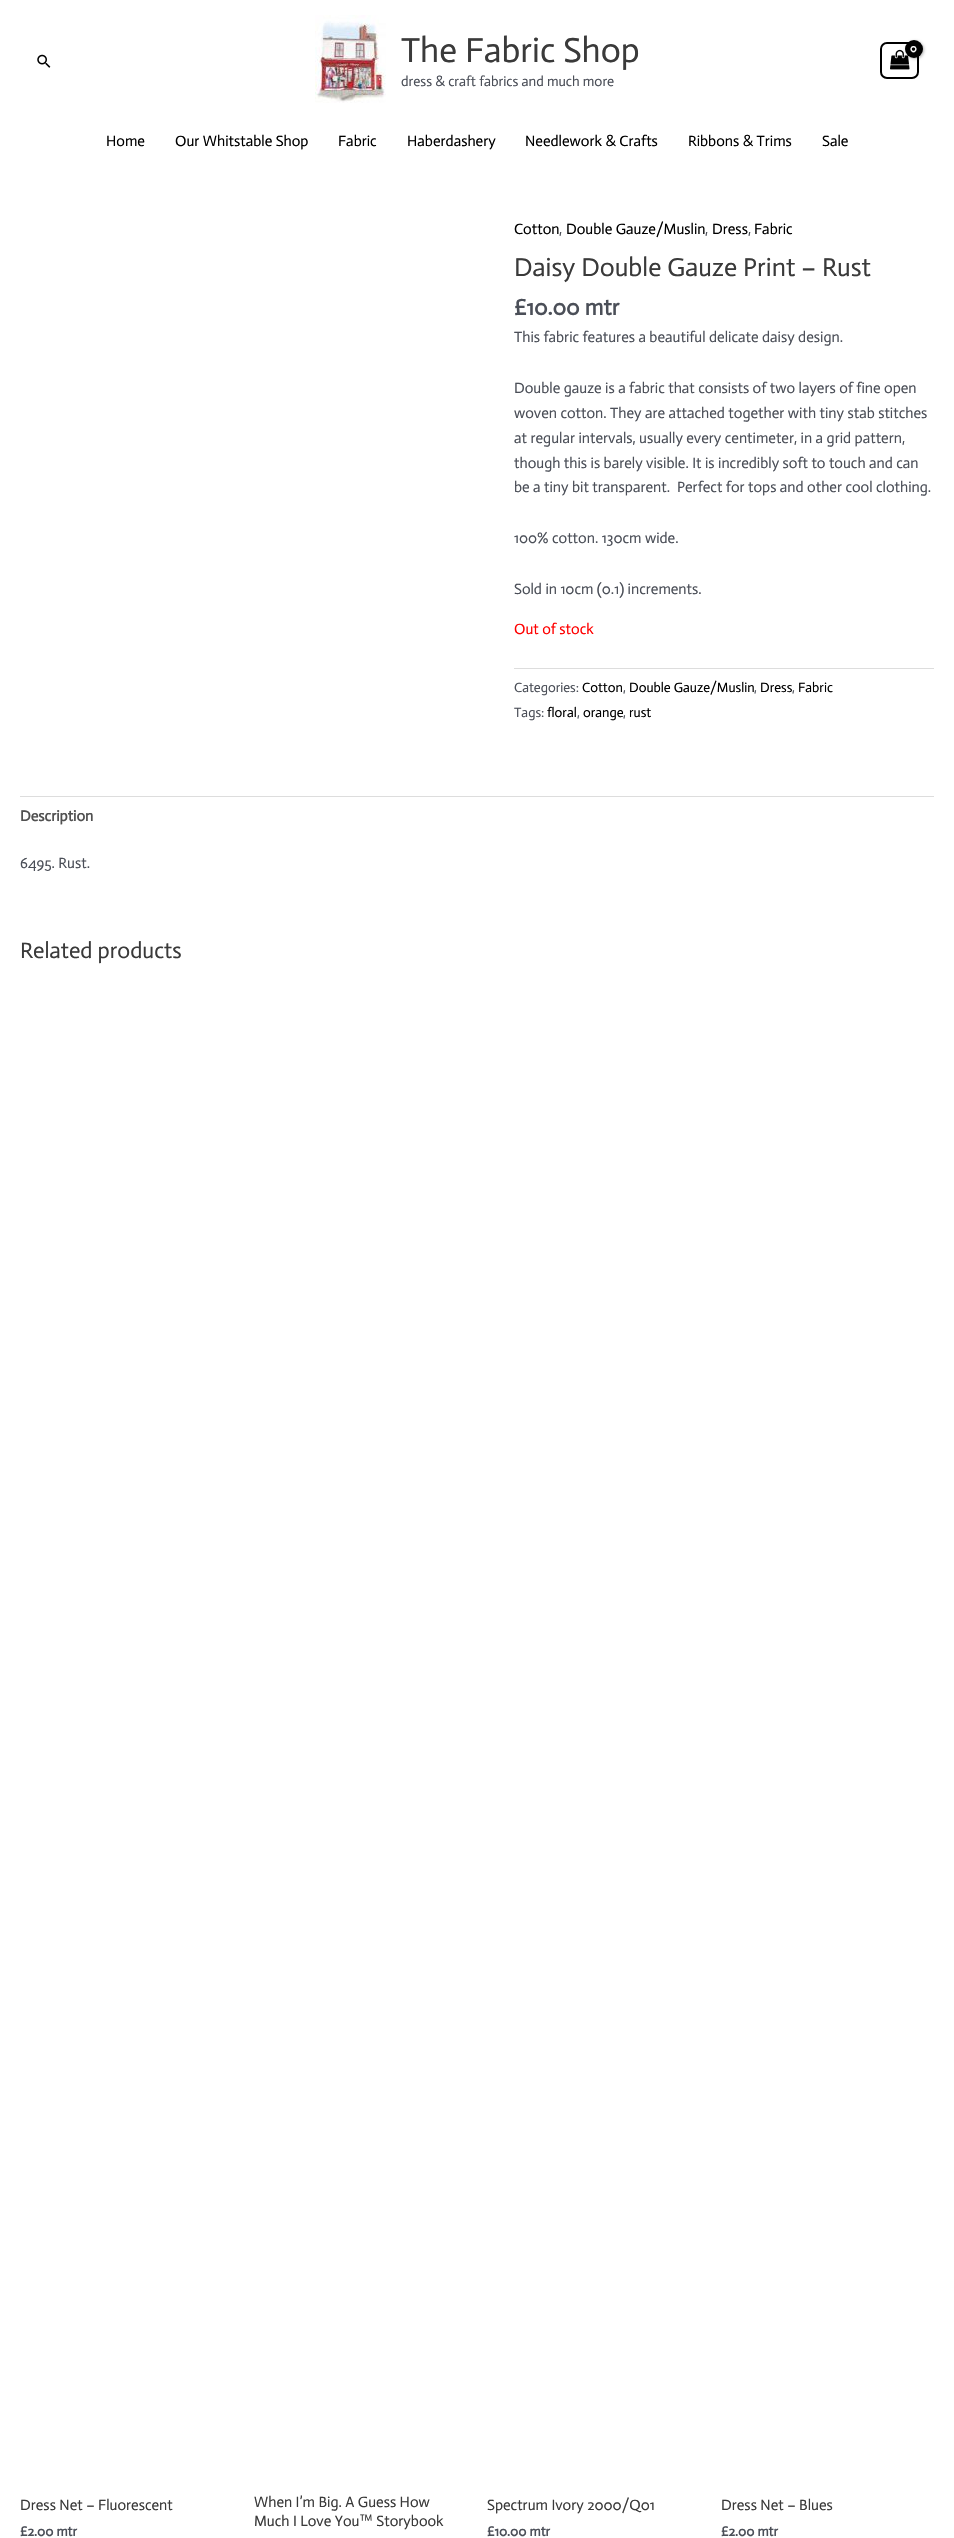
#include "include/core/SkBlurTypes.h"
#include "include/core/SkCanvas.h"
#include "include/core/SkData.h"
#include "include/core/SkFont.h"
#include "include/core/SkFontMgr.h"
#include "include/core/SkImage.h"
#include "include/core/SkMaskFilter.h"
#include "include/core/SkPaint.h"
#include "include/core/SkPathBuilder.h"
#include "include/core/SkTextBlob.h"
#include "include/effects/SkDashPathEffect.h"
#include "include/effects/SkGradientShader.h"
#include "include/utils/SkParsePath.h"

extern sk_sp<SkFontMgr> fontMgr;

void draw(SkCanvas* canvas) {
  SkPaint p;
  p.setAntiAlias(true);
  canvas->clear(SK_ColorWHITE);
  canvas->drawImageRect(SkImages::DeferredFromEncodedData(SkData::MakeFromFileName("images/1.png")), SkRect::MakeLTRB(315, 15, 386, 103), SkSamplingOptions());
  p.setStyle(SkPaint::kStroke_Style);
  p.setStrokeWidth(2);
  p.setColor(SK_ColorBLACK);
  canvas->drawRoundRect(SkRect::MakeLTRB(881, 43, 918, 78), 6, 6, p);
  canvas->drawImageRect(SkImages::DeferredFromEncodedData(SkData::MakeFromFileName("images/2.png")), SkRect::MakeLTRB(890, 49, 910, 70), SkSamplingOptions());
  p.setStyle(SkPaint::kFill_Style);
  p.setColor(SkColorSetARGB(77, 0, 0, 0));
  p.setMaskFilter(SkMaskFilter::MakeBlur(kNormal_SkBlurStyle, 1.5f));
  canvas->drawRoundRect(SkRect::MakeLTRB(906, 41, 924, 59), 9, 9, p);
  p.setMaskFilter(nullptr);
  p.setColor(SK_ColorBLACK);
  canvas->drawCircle(914, 49, 9, p);
  canvas->drawImageRect(SkImages::DeferredFromEncodedData(SkData::MakeFromFileName("images/3.png")), SkRect::MakeLTRB(37, 54, 51, 68), SkSamplingOptions());
  p.setColor(SkColorSetRGB(221, 221, 221));
  canvas->drawRect(SkRect::MakeLTRB(514, 668, 934, 669), p);
  canvas->drawRect(SkRect::MakeLTRB(20, 796, 934, 797), p);
  SkFont font1(fontMgr->matchFamilyStyle("Actor", SkFontStyle::Normal()), 35);
  font1.setSubpixel(true);
  p.setColor(SkColorSetRGB(58, 58, 58));
  canvas->drawString("The Fabric Shop", 401, 62, font1, p);
  SkFont font2(fontMgr->matchFamilyStyle("Actor", SkFontStyle::Normal()), 14);
  font2.setSubpixel(true);
  p.setColor(SkColorSetRGB(75, 79, 88));
  canvas->drawString("dress & craft fabrics and much more", 401, 86, font2, p);
  SkFont font3(fontMgr->matchFamilyStyle("Actor", SkFontStyle::Bold()), 11);
  font3.setSubpixel(true);
  p.setColor(SK_ColorWHITE);
  canvas->drawString("0", 910, 52, font3, p);
  SkFont font4(fontMgr->matchFamilyStyle("Actor", SkFontStyle::Normal()), 15);
  font4.setSubpixel(true);
  p.setColor(SK_ColorBLACK);
  canvas->drawString("Home", 106, 146, font4, p);
  canvas->drawString("Our Whitstable Shop", 175, 146, font4, p);
  canvas->drawString("Fabric", 338, 146, font4, p);
  canvas->drawString("Haberdashery", 407, 146, font4, p);
  canvas->drawString("Needlework & Crafts", 525, 146, font4, p);
  canvas->drawString("Ribbons & Trims", 688, 146, font4, p);
  canvas->drawString("Sale", 822, 146, font4, p);
  canvas->drawString("Cotton", 514, 234, font4, p);
  p.setColor(SkColorSetRGB(75, 79, 88));
  canvas->drawString(",", 559, 234, font4, p);
  p.setColor(SK_ColorBLACK);
  canvas->drawString("Double Gauze/Muslin", 566, 234, font4, p);
  p.setColor(SkColorSetRGB(75, 79, 88));
  canvas->drawString(",", 705, 234, font4, p);
  p.setColor(SK_ColorBLACK);
  canvas->drawString("Dress", 712, 234, font4, p);
  p.setColor(SkColorSetRGB(75, 79, 88));
  canvas->drawString(",", 748, 234, font4, p);
  p.setColor(SK_ColorBLACK);
  canvas->drawString("Fabric", 754, 234, font4, p);
  SkFont font5(fontMgr->matchFamilyStyle("Actor", SkFontStyle::Normal()), 26);
  font5.setSubpixel(true);
  p.setColor(SkColorSetRGB(58, 58, 58));
  canvas->drawString("Daisy Double Gauze Print – Rust", 514, 276, font5, p);
  SkFont font6(fontMgr->matchFamilyStyle("Actor", SkFontStyle::Bold()), 22.5f);
  font6.setSubpixel(true);
  p.setColor(SkColorSetRGB(75, 79, 88));
  canvas->drawString("£10.00 mtr", 514, 315, font6, p);
  canvas->drawString("This fabric features a beautiful delicate daisy design.", 514, 342, font4, p);
  canvas->drawString("Double gauze is a fabric that consists of two layers of fine open", 514, 393, font4, p);
  canvas->drawString("woven cotton. They are attached together with tiny stab stitches", 514, 418, font4, p);
  canvas->drawString("at regular intervals, usually every centimeter, in a grid pattern,", 514, 443, font4, p);
  canvas->drawString("though this is barely visible. It is incredibly soft to touch and can", 514, 468, font4, p);
  canvas->drawString("be a tiny bit transparent.  Perfect for tops and other cool clothing.", 514, 492, font4, p);
  canvas->drawString("100% cotton. 130cm wide.", 514, 543, font4, p);
  canvas->drawString("Sold in 10cm (0.1) increments.", 514, 594, font4, p);
  p.setColor(SkColorSetRGB(255, 0, 0));
  canvas->drawString("Out of stock", 514, 634, font4, p);
  SkFont font7(fontMgr->matchFamilyStyle("Actor", SkFontStyle::Normal()), 13.5f);
  font7.setSubpixel(true);
  p.setColor(SkColorSetRGB(75, 79, 88));
  canvas->drawString("Categories:", 514, 692, font7, p);
  p.setColor(SK_ColorBLACK);
  canvas->drawString("Cotton", 582, 692, font7, p);
  p.setColor(SkColorSetRGB(75, 79, 88));
  canvas->drawString(",", 623, 692, font7, p);
  p.setColor(SK_ColorBLACK);
  canvas->drawString("Double Gauze/Muslin", 629, 692, font7, p);
  p.setColor(SkColorSetRGB(75, 79, 88));
  canvas->drawString(",", 754, 692, font7, p);
  p.setColor(SK_ColorBLACK);
  canvas->drawString("Dress", 760, 692, font7, p);
  p.setColor(SkColorSetRGB(75, 79, 88));
  canvas->drawString(",", 792, 692, font7, p);
  p.setColor(SK_ColorBLACK);
  canvas->drawString("Fabric", 798, 692, font7, p);
  p.setColor(SkColorSetRGB(75, 79, 88));
  canvas->drawString("Tags:", 514, 717, font7, p);
  p.setColor(SK_ColorBLACK);
  canvas->drawString("floral", 547, 717, font7, p);
  p.setColor(SkColorSetRGB(75, 79, 88));
  canvas->drawString(",", 577, 717, font7, p);
  p.setColor(SK_ColorBLACK);
  canvas->drawString("orange", 583, 717, font7, p);
  p.setColor(SkColorSetRGB(75, 79, 88));
  canvas->drawString(",", 623, 717, font7, p);
  p.setColor(SK_ColorBLACK);
  canvas->drawString("rust", 629, 717, font7, p);
  SkFont font8(fontMgr->matchFamilyStyle("Actor", SkFontStyle::Bold()), 15);
  font8.setSubpixel(true);
  p.setColor(SkColorSetRGB(81, 81, 81));
  canvas->drawString("Description", 20, 821, font8, p);
  p.setColor(SkColorSetRGB(75, 79, 88));
  canvas->drawString("6495. Rust.", 20, 868, font4, p);
  SkFont font9(fontMgr->matchFamilyStyle("Actor", SkFontStyle::Normal()), 22.5f);
  font9.setSubpixel(true);
  p.setColor(SkColorSetRGB(58, 58, 58));
  canvas->drawString("Related products", 20, 958, font9, p);
  canvas->drawString("Dress Net – Fluorescent", 20, 2510, font4, p);
  SkFont font10(fontMgr->matchFamilyStyle("Actor", SkFontStyle::Bold()), 13.5f);
  font10.setSubpixel(true);
  p.setColor(SkColorSetRGB(75, 79, 88));
  canvas->drawString("£2.00 mtr", 20, 2536, font10, p);
  p.setColor(SkColorSetRGB(58, 58, 58));
  canvas->drawString("When I’m Big. A Guess How", 254, 2507, font4, p);
  canvas->drawString("Much I Love You™ Storybook", 254, 2526, font4, p);
  canvas->drawString("Spectrum Ivory 2000/Q01", 487, 2510, font4, p);
  p.setColor(SkColorSetRGB(75, 79, 88));
  canvas->drawString("£10.00 mtr", 487, 2536, font10, p);
  p.setColor(SkColorSetRGB(58, 58, 58));
  canvas->drawString("Dress Net – Blues", 721, 2510, font4, p);
  p.setColor(SkColorSetRGB(75, 79, 88));
  canvas->drawString("£2.00 mtr", 721, 2536, font10, p);
}
